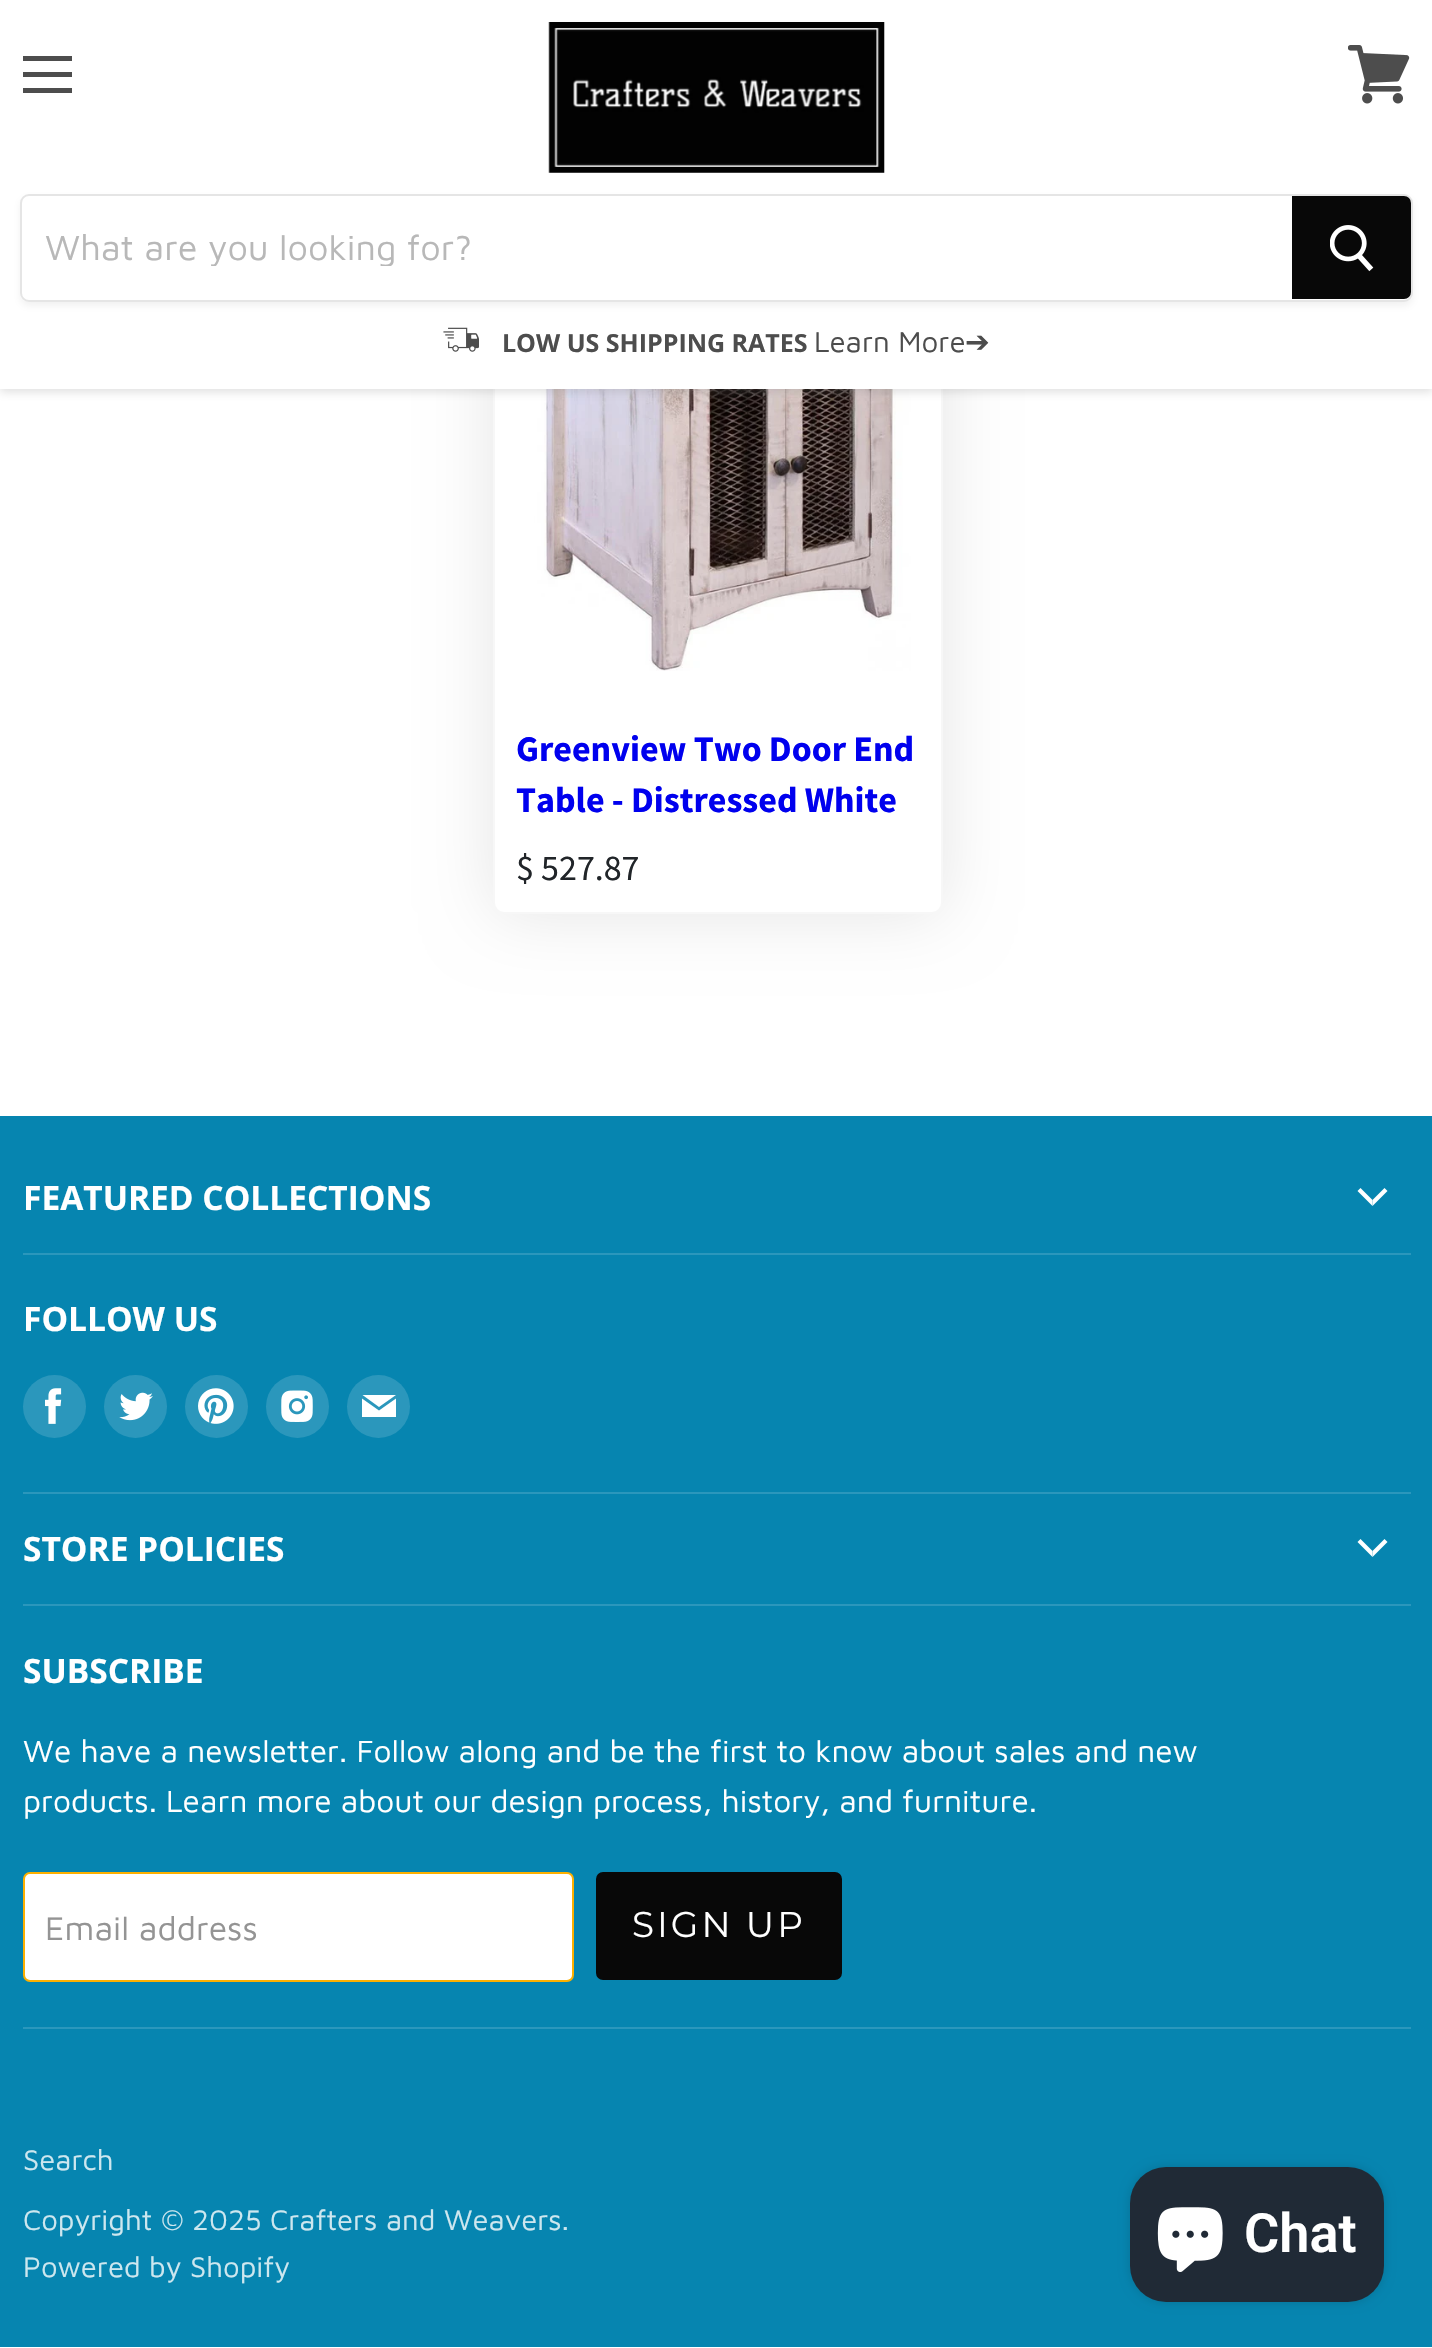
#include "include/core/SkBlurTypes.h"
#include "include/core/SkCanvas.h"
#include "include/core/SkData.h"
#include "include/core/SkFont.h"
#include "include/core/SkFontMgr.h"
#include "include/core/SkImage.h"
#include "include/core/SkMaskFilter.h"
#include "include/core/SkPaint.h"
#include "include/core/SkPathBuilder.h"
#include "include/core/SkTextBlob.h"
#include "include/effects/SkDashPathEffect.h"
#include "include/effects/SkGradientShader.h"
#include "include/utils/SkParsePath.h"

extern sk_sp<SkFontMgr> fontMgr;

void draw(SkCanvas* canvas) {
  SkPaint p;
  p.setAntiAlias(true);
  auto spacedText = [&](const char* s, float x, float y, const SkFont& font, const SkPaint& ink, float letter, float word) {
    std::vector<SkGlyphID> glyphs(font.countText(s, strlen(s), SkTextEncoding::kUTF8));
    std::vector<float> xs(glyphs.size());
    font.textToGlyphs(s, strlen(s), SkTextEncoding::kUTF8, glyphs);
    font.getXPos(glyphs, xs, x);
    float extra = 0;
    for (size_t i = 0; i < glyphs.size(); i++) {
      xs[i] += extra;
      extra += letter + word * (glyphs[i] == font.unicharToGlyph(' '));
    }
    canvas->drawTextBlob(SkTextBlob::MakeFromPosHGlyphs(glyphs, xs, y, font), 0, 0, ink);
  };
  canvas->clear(SK_ColorWHITE);
  p.setColor(SkColorSetARGB(26, 0, 0, 0));
  p.setMaskFilter(SkMaskFilter::MakeBlur(kNormal_SkBlurStyle, 34));
  canvas->drawRoundRect(SkRect::MakeLTRB(493, 248, 943, 914), 11, 11, p);
  p.setMaskFilter(nullptr);
  p.setColor(SK_ColorWHITE);
  canvas->drawRoundRect(SkRect::MakeLTRB(494, 249, 942, 913), 10, 10, p);
  p.setStyle(SkPaint::kStroke_Style);
  p.setStrokeWidth(2);
  p.setColor(SkColorSetRGB(247, 247, 247));
  canvas->drawRoundRect(SkRect::MakeLTRB(494, 249, 942, 913), 10, 10, p);
  canvas->drawImageRect(SkImages::DeferredFromEncodedData(SkData::MakeFromFileName("images/5.png")), SkRect::MakeLTRB(534, 389, 911, 671), SkSamplingOptions());
  p.setStyle(SkPaint::kFill_Style);
  p.setColor(SkColorSetARGB(64, 127, 127, 127));
  p.setMaskFilter(SkMaskFilter::MakeBlur(kNormal_SkBlurStyle, 4.5f));
  canvas->drawRect(SkRect::MakeLTRB(0, 2, 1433, 392), p);
  p.setMaskFilter(nullptr);
  p.setColor(SK_ColorWHITE);
  canvas->drawRect(SkRect::MakeLTRB(0, 0, 1432, 389), p);
  p.setColor(SkColorSetRGB(77, 77, 77));
  canvas->drawRect(SkRect::MakeLTRB(23, 56, 72, 61), p);
  canvas->drawRect(SkRect::MakeLTRB(23, 72, 72, 77), p);
  canvas->drawRect(SkRect::MakeLTRB(23, 88, 72, 93), p);
  canvas->drawImageRect(SkImages::DeferredFromEncodedData(SkData::MakeFromFileName("images/1.png")), SkRect::MakeLTRB(1348, 45, 1410, 104), SkSamplingOptions());
  canvas->drawImageRect(SkImages::DeferredFromEncodedData(SkData::MakeFromFileName("images/2.png")), SkRect::MakeLTRB(548, 22, 885, 173), SkSamplingOptions());
  canvas->save();
  canvas->clipPath(SkPathBuilder(SkPathFillType::kEvenOdd).moveTo(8, 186).lineTo(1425, 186).lineTo(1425, 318).lineTo(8, 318).close().moveTo(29, 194).lineTo(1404, 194).cubicTo(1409, 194, 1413, 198, 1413, 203).lineTo(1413, 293).cubicTo(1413, 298, 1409, 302, 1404, 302).lineTo(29, 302).cubicTo(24, 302, 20, 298, 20, 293).lineTo(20, 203).cubicTo(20, 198, 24, 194, 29, 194).close().detach(), true);
  p.setColor(SkColorSetARGB(28, 127, 127, 127));
  p.setMaskFilter(SkMaskFilter::MakeBlur(kNormal_SkBlurStyle, 3.5f));
  canvas->drawRoundRect(SkRect::MakeLTRB(20, 198, 1413, 306), 9, 9, p);
  p.setMaskFilter(nullptr);
  canvas->restore();
  p.setStyle(SkPaint::kStroke_Style);
  p.setColor(SkColorSetARGB(51, 127, 127, 127));
  canvas->drawRoundRect(SkRect::MakeLTRB(21, 195, 1412, 301), 8, 8, p);
  p.setStyle(SkPaint::kFill_Style);
  p.setColor(SkColorSetRGB(8, 8, 8));
  canvas->drawPath(SkPathBuilder().moveTo(1293, 197).lineTo(1404, 197).cubicTo(1407.5f, 197, 1410, 199.5f, 1410, 203).lineTo(1410, 292).cubicTo(1410, 295.5f, 1407.5f, 298, 1404, 298).lineTo(1293, 298).close().detach(), p);
  p.setStyle(SkPaint::kStroke_Style);
  canvas->drawPath(SkPathBuilder().moveTo(1293, 197).lineTo(1404, 197).cubicTo(1407.5f, 197, 1410, 199.5f, 1410, 203).lineTo(1410, 292).cubicTo(1410, 295.5f, 1407.5f, 298, 1404, 298).lineTo(1293, 298).close().detach(), p);
  canvas->drawImageRect(SkImages::DeferredFromEncodedData(SkData::MakeFromFileName("images/3.png")), SkRect::MakeLTRB(1330, 225, 1374, 272), SkSamplingOptions());
  canvas->drawImageRect(SkImages::DeferredFromEncodedData(SkData::MakeFromFileName("images/4.png")), SkRect::MakeLTRB(443, 327, 479, 352), SkSamplingOptions());
  p.setStyle(SkPaint::kFill_Style);
  p.setColor(SkColorSetRGB(6, 133, 176));
  canvas->drawRect(SkRect::MakeLTRB(0, 1116, 1432, 2347), p);
  p.setColor(SkColorSetRGB(43, 151, 188));
  canvas->drawRect(SkRect::MakeLTRB(23, 1253, 1411, 1255), p);
  p.setColor(SK_ColorWHITE);
  canvas->drawPath(SkPathBuilder(SkPathFillType::kEvenOdd).moveTo(1372.5f, 1206).lineTo(1387.5f, 1191).lineTo(1384.5f, 1188).lineTo(1372.5f, 1200).close().detach(), p);
  canvas->drawPath(SkPathBuilder(SkPathFillType::kEvenOdd).moveTo(1372.5f, 1200).lineTo(1360.5f, 1188).lineTo(1357.5f, 1191).lineTo(1372.5f, 1206).close().detach(), p);
  p.setColor(SkColorSetRGB(43, 151, 188));
  canvas->drawRect(SkRect::MakeLTRB(23, 1492, 1411, 1494), p);
  canvas->drawCircle(54.5f, 1406.5f, 31.5f, p);
  canvas->drawImageRect(SkImages::DeferredFromEncodedData(SkData::MakeFromFileName("images/6.png")), SkRect::MakeLTRB(45, 1388, 62, 1424), SkSamplingOptions());
  canvas->drawCircle(135.5f, 1406.5f, 31.5f, p);
  canvas->drawImageRect(SkImages::DeferredFromEncodedData(SkData::MakeFromFileName("images/7.png")), SkRect::MakeLTRB(119, 1392, 153, 1421), SkSamplingOptions());
  canvas->drawCircle(216.5f, 1406.5f, 31.5f, p);
  canvas->drawImageRect(SkImages::DeferredFromEncodedData(SkData::MakeFromFileName("images/8.png")), SkRect::MakeLTRB(198, 1388, 234, 1424), SkSamplingOptions());
  canvas->drawCircle(297.5f, 1406.5f, 31.5f, p);
  canvas->drawImageRect(SkImages::DeferredFromEncodedData(SkData::MakeFromFileName("images/9.png")), SkRect::MakeLTRB(281, 1390, 313, 1422), SkSamplingOptions());
  canvas->drawCircle(378.5f, 1406.5f, 31.5f, p);
  p.setColor(SK_ColorWHITE);
  canvas->drawPath(SkPathBuilder(SkPathFillType::kEvenOdd).moveTo(396, 1395).lineTo(362.5f, 1395).lineTo(379, 1407).close().moveTo(379, 1410.5f).lineTo(362, 1398.5f).lineTo(362, 1417).lineTo(396, 1417).lineTo(396, 1398.5f).close().detach(), p);
  p.setColor(SkColorSetRGB(43, 151, 188));
  canvas->drawRect(SkRect::MakeLTRB(23, 1604, 1411, 1606), p);
  p.setColor(SK_ColorWHITE);
  canvas->drawPath(SkPathBuilder(SkPathFillType::kEvenOdd).moveTo(1372.5f, 1557).lineTo(1387.5f, 1542).lineTo(1384.5f, 1539).lineTo(1372.5f, 1551).close().detach(), p);
  canvas->drawPath(SkPathBuilder(SkPathFillType::kEvenOdd).moveTo(1372.5f, 1551).lineTo(1360.5f, 1539).lineTo(1357.5f, 1542).lineTo(1372.5f, 1557).close().detach(), p);
  p.setColor(SkColorSetRGB(43, 151, 188));
  canvas->drawRect(SkRect::MakeLTRB(23, 2027, 1411, 2029), p);
  p.setColor(SK_ColorWHITE);
  canvas->drawRoundRect(SkRect::MakeLTRB(24, 1873, 573, 1981), 6, 6, p);
  p.setStyle(SkPaint::kStroke_Style);
  p.setColor(SkColorSetRGB(253, 176, 0));
  canvas->drawRoundRect(SkRect::MakeLTRB(24, 1873, 573, 1981), 6, 6, p);
  p.setStyle(SkPaint::kFill_Style);
  p.setColor(SkColorSetRGB(8, 8, 8));
  canvas->drawRoundRect(SkRect::MakeLTRB(597, 1873, 841, 1979), 6, 6, p);
  p.setStyle(SkPaint::kStroke_Style);
  canvas->drawRoundRect(SkRect::MakeLTRB(597, 1873, 841, 1979), 6, 6, p);
  p.setStyle(SkPaint::kFill_Style);
  p.setColor(SkColorSetARGB(38, 0, 0, 0));
  p.setMaskFilter(SkMaskFilter::MakeBlur(kNormal_SkBlurStyle, 5.5f));
  canvas->drawRoundRect(SkRect::MakeLTRB(1130, 2167, 1384, 2302), 36, 36, p);
  p.setMaskFilter(nullptr);
  p.setColor(SkColorSetRGB(32, 42, 54));
  canvas->drawRoundRect(SkRect::MakeLTRB(1130, 2167, 1384, 2302), 36, 36, p);
  canvas->drawImageRect(SkImages::DeferredFromEncodedData(SkData::MakeFromFileName("images/10.png")), SkRect::MakeLTRB(1157, 2207, 1223, 2272), SkSamplingOptions());
  canvas->save();
  canvas->clipRect(SkRect::MakeLTRB(45, 225, 1269, 266));
  SkFont font1(fontMgr->matchFamilyStyle("Maven Pro", SkFontStyle::Normal()), 36);
  font1.setSubpixel(true);
  p.setColor(SkColorSetRGB(184, 184, 184));
  canvas->drawString("What are you looking for?", 45, 260, font1, p);
  canvas->restore();
  SkFont font2(fontMgr->matchFamilyStyle("Open Sans", SkFontStyle::Bold()), 25);
  font2.setSubpixel(true);
  p.setColor(SkColorSetRGB(77, 77, 77));
  canvas->drawString("LOW US SHIPPING RATES", 502, 352, font2, p);
  SkFont font3(fontMgr->matchFamilyStyle("Maven Pro", SkFontStyle::Normal()), 29.5f);
  font3.setSubpixel(true);
  canvas->drawString("Learn More", 814, 352, font3, p);
  SkFont font4(fontMgr->matchFamilyStyle("DejaVu Sans", SkFontStyle::Normal()), 29.5f);
  font4.setSubpixel(true);
  canvas->drawString("➔", 965, 352, font4, p);
  SkFont font5(fontMgr->matchFamilyStyle("Source Sans Pro", SkFontStyle::Bold()), 36);
  font5.setSubpixel(true);
  p.setColor(SkColorSetRGB(0, 0, 238));
  canvas->drawString("Greenview Two Door End", 516, 761, font5, p);
  canvas->drawString("Table - Distressed White", 516, 812, font5, p);
  SkFont font6(fontMgr->matchFamilyStyle("Source Sans Pro", SkFontStyle::Normal()), 36);
  font6.setSubpixel(true);
  p.setColor(SkColorSetRGB(33, 37, 41));
  canvas->drawString("$ 527.87", 516, 880, font6, p);
  SkFont font7(fontMgr->matchFamilyStyle("Open Sans", SkFontStyle::Bold()), 33.5f);
  font7.setSubpixel(true);
  p.setColor(SK_ColorWHITE);
  canvas->drawString("FEATURED COLLECTIONS", 23, 1210, font7, p);
  canvas->drawString("FOLLOW US", 23, 1331, font7, p);
  canvas->drawString("STORE POLICIES", 23, 1561, font7, p);
  canvas->drawString("SUBSCRIBE", 23, 1683, font7, p);
  SkFont font8(fontMgr->matchFamilyStyle("Maven Pro", SkFontStyle::Normal()), 31.65f);
  font8.setSubpixel(true);
  canvas->drawString("We have a newsletter. Follow along and be the first to know about sales and new", 23, 1762, font8, p);
  spacedText("products. Learn more about our design process, history, and furniture.", 23, 1812, font8, p, 0, -0.1f);
  SkFont font9(fontMgr->matchFamilyStyle("Maven Pro", SkFontStyle::Normal()), 33.75f);
  font9.setSubpixel(true);
  p.setColor(SkColorSetRGB(148, 148, 148));
  canvas->drawString("Email address", 45, 1940, font9, p);
  SkFont font10(fontMgr->matchFamilyStyle("Montserrat", SkFontStyle::Normal()), 35.75f);
  font10.setSubpixel(true);
  p.setColor(SK_ColorWHITE);
  spacedText("SIGN UP", 632, 1937, font10, p, 3, 0);
  SkFont font11(fontMgr->matchFamilyStyle("Maven Pro", SkFontStyle::Normal()), 29.25f);
  font11.setSubpixel(true);
  p.setColor(SkColorSetRGB(205, 231, 239));
  canvas->drawString("Search", 23, 2170, font11, p);
  canvas->drawString("Copyright © 2025 Crafters and Weavers.", 23, 2230, font11, p);
  canvas->drawString("Powered by Shopify", 23, 2277, font11, p);
  SkFont font12(fontMgr->matchFamilyStyle("Roboto", SkFontStyle(600, SkFontStyle::kNormal_Width, SkFontStyle::kUpright_Slant)), 54);
  font12.setSubpixel(true);
  p.setColor(SK_ColorWHITE);
  canvas->drawString("Chat", 1244, 2252, font12, p);
}
